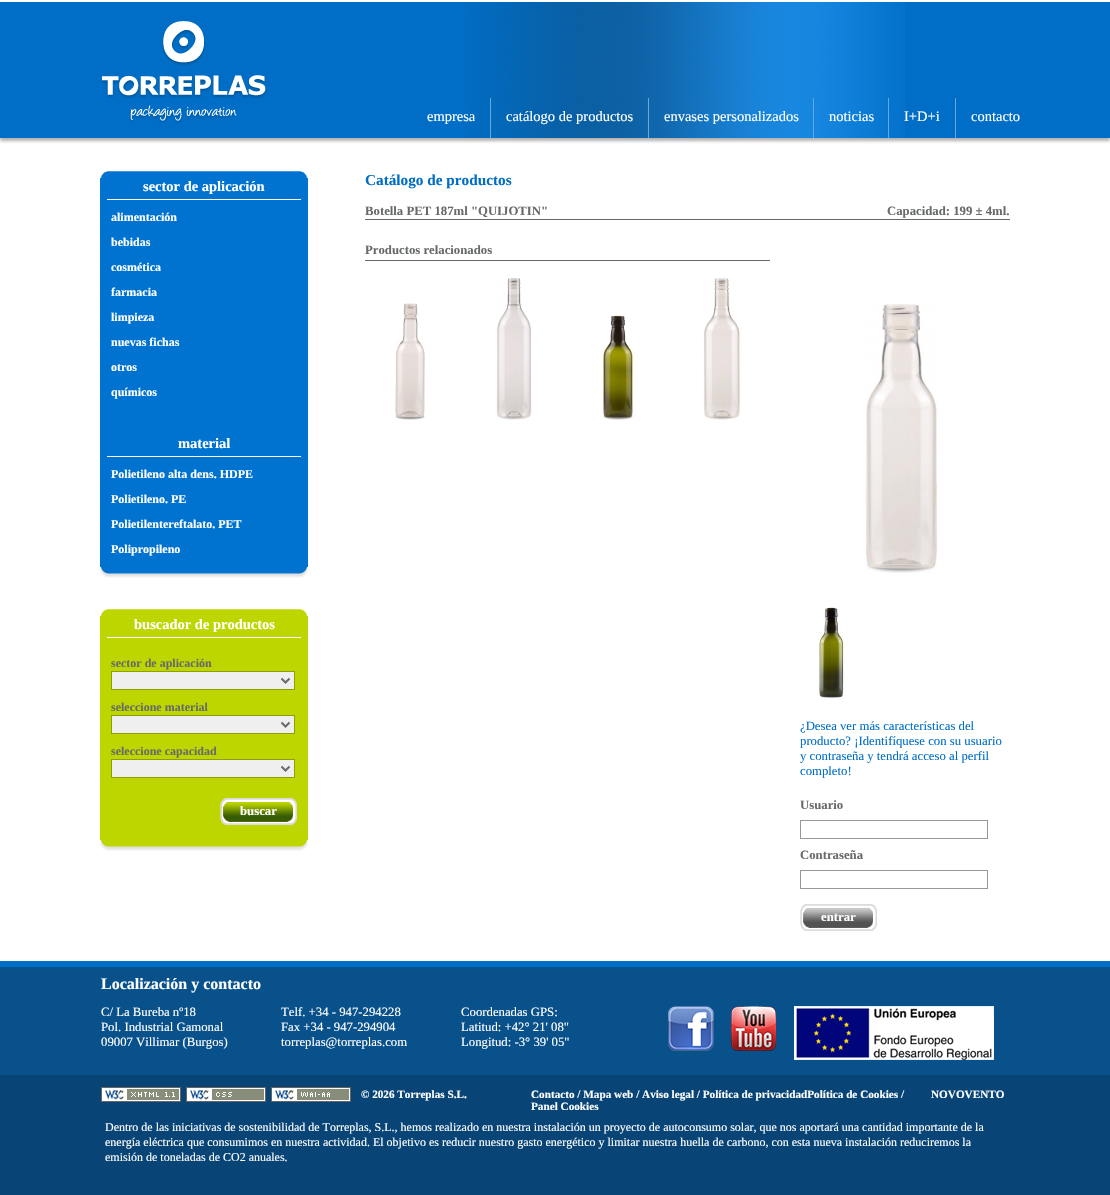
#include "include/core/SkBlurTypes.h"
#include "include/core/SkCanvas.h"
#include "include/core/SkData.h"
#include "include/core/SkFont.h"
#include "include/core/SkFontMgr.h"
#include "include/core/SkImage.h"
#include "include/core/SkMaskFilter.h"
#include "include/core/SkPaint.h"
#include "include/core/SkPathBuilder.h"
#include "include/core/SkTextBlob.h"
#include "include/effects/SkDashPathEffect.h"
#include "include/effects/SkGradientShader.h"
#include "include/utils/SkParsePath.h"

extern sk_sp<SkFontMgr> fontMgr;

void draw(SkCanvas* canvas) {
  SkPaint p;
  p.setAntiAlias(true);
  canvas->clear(SkColorSetRGB(8, 69, 118));
  p.setColor(SK_ColorWHITE);
  canvas->drawRect(SkRect::MakeLTRB(0, 0, 1110, 961), p);
  p.setColor(SkColorSetARGB(77, 0, 0, 0));
  p.setMaskFilter(SkMaskFilter::MakeBlur(kNormal_SkBlurStyle, 1.5f));
  canvas->drawRect(SkRect::MakeLTRB(0, 5, 1110, 141), p);
  p.setMaskFilter(nullptr);
  p.setColor(SkColorSetRGB(0, 110, 198));
  canvas->drawRect(SkRect::MakeLTRB(0, 2, 1110, 138), p);
  canvas->drawImageRect(SkImages::DeferredFromEncodedData(SkData::MakeFromFileName("images/1.png")), SkRect::MakeLTRB(465, 2, 905, 138), SkSamplingOptions());
  canvas->drawImageRect(SkImages::DeferredFromEncodedData(SkData::MakeFromFileName("images/2.png")), SkRect::MakeLTRB(101, 21, 267, 124), SkSamplingOptions());
  p.setColor(SkColorSetRGB(102, 168, 221));
  canvas->drawRect(SkRect::MakeLTRB(490, 98, 491, 138), p);
  canvas->drawRect(SkRect::MakeLTRB(648, 98, 649, 138), p);
  canvas->drawRect(SkRect::MakeLTRB(813, 98, 814, 138), p);
  canvas->drawRect(SkRect::MakeLTRB(888, 98, 889, 138), p);
  canvas->drawRect(SkRect::MakeLTRB(955, 98, 956, 138), p);
  canvas->drawImageRect(SkImages::DeferredFromEncodedData(SkData::MakeFromFileName("images/3.png")), SkRect::MakeLTRB(101, 171, 307, 178), SkSamplingOptions());
  p.setColor(SkColorSetRGB(0, 115, 208));
  canvas->drawRect(SkRect::MakeLTRB(100, 178, 308, 567), p);
  p.setColor(SK_ColorWHITE);
  canvas->drawRect(SkRect::MakeLTRB(107, 199, 301, 200), p);
  canvas->drawRect(SkRect::MakeLTRB(107, 456, 301, 457), p);
  canvas->drawImageRect(SkImages::DeferredFromEncodedData(SkData::MakeFromFileName("images/4.png")), SkRect::MakeLTRB(100, 567, 308, 578), SkSamplingOptions());
  canvas->drawImageRect(SkImages::DeferredFromEncodedData(SkData::MakeFromFileName("images/5.png")), SkRect::MakeLTRB(101, 609, 307, 616), SkSamplingOptions());
  p.setColor(SkColorSetRGB(190, 214, 0));
  canvas->drawRect(SkRect::MakeLTRB(100, 616, 308, 840), p);
  p.setColor(SK_ColorWHITE);
  canvas->drawRect(SkRect::MakeLTRB(107, 637, 301, 638), p);
  p.setColor(SkColorSetRGB(239, 239, 239));
  canvas->drawRect(SkRect::MakeLTRB(111.5f, 671.5f, 294.5f, 689.5f), p);
  p.setStyle(SkPaint::kStroke_Style);
  p.setStrokeWidth(1);
  p.setColor(SkColorSetRGB(142, 160, 0));
  canvas->drawRect(SkRect::MakeLTRB(111.5f, 671.5f, 294.5f, 689.5f), p);
  p.setStrokeWidth(2);
  p.setColor(SkColorSetRGB(103, 105, 106));
  canvas->drawPath(SkPathBuilder().moveTo(281.5f, 678.5f).lineTo(285.5f, 682.5f).lineTo(289.5f, 678.5f).detach(), p);
  p.setStyle(SkPaint::kFill_Style);
  p.setColor(SkColorSetRGB(239, 239, 239));
  canvas->drawRect(SkRect::MakeLTRB(111.5f, 715.5f, 294.5f, 733.5f), p);
  p.setStyle(SkPaint::kStroke_Style);
  p.setStrokeWidth(1);
  p.setColor(SkColorSetRGB(142, 160, 0));
  canvas->drawRect(SkRect::MakeLTRB(111.5f, 715.5f, 294.5f, 733.5f), p);
  p.setStrokeWidth(2);
  p.setColor(SkColorSetRGB(103, 105, 106));
  canvas->drawPath(SkPathBuilder().moveTo(281.5f, 722.5f).lineTo(285.5f, 726.5f).lineTo(289.5f, 722.5f).detach(), p);
  p.setStyle(SkPaint::kFill_Style);
  p.setColor(SkColorSetRGB(239, 239, 239));
  canvas->drawRect(SkRect::MakeLTRB(111.5f, 759.5f, 294.5f, 777.5f), p);
  p.setStyle(SkPaint::kStroke_Style);
  p.setStrokeWidth(1);
  p.setColor(SkColorSetRGB(142, 160, 0));
  canvas->drawRect(SkRect::MakeLTRB(111.5f, 759.5f, 294.5f, 777.5f), p);
  p.setStrokeWidth(2);
  p.setColor(SkColorSetRGB(103, 105, 106));
  canvas->drawPath(SkPathBuilder().moveTo(281.5f, 766.5f).lineTo(285.5f, 770.5f).lineTo(289.5f, 766.5f).detach(), p);
  canvas->drawImageRect(SkImages::DeferredFromEncodedData(SkData::MakeFromFileName("images/6.png")), SkRect::MakeLTRB(220, 798, 297, 825), SkSamplingOptions());
  canvas->drawImageRect(SkImages::DeferredFromEncodedData(SkData::MakeFromFileName("images/7.png")), SkRect::MakeLTRB(100, 840, 308, 851), SkSamplingOptions());
  p.setStyle(SkPaint::kFill_Style);
  canvas->drawRect(SkRect::MakeLTRB(365, 219, 1010, 220), p);
  canvas->drawRect(SkRect::MakeLTRB(365, 260, 770, 261), p);
  canvas->drawImageRect(SkImages::DeferredFromEncodedData(SkData::MakeFromFileName("images/8.png")), SkRect::MakeLTRB(395, 303, 425, 420), SkSamplingOptions());
  canvas->drawImageRect(SkImages::DeferredFromEncodedData(SkData::MakeFromFileName("images/9.png")), SkRect::MakeLTRB(496, 278, 532, 420), SkSamplingOptions());
  canvas->drawImageRect(SkImages::DeferredFromEncodedData(SkData::MakeFromFileName("images/10.png")), SkRect::MakeLTRB(602, 314, 634, 420), SkSamplingOptions());
  canvas->drawImageRect(SkImages::DeferredFromEncodedData(SkData::MakeFromFileName("images/11.png")), SkRect::MakeLTRB(703, 278, 741, 420), SkSamplingOptions());
  canvas->drawImageRect(SkImages::DeferredFromEncodedData(SkData::MakeFromFileName("images/12.png")), SkRect::MakeLTRB(865, 303, 938, 573), SkSamplingOptions());
  canvas->drawImageRect(SkImages::DeferredFromEncodedData(SkData::MakeFromFileName("images/13.png")), SkRect::MakeLTRB(818, 606, 845, 698), SkSamplingOptions());
  p.setStyle(SkPaint::kStroke_Style);
  p.setStrokeWidth(1);
  p.setColor(SkColorSetRGB(151, 151, 151));
  canvas->drawRect(SkRect::MakeLTRB(800.5f, 820.5f, 987.5f, 838.5f), p);
  canvas->drawRect(SkRect::MakeLTRB(800.5f, 870.5f, 987.5f, 888.5f), p);
  canvas->drawImageRect(SkImages::DeferredFromEncodedData(SkData::MakeFromFileName("images/14.png")), SkRect::MakeLTRB(800, 904, 877, 931), SkSamplingOptions());
  p.setStyle(SkPaint::kFill_Style);
  p.setColor(SkColorSetRGB(9, 81, 139));
  canvas->drawRect(SkRect::MakeLTRB(0, 967, 1110, 1075), p);
  p.setColor(SkColorSetRGB(0, 110, 198));
  canvas->drawRect(SkRect::MakeLTRB(0, 961, 1110, 967), p);
  canvas->drawImageRect(SkImages::DeferredFromEncodedData(SkData::MakeFromFileName("images/15.png")), SkRect::MakeLTRB(668, 1006, 714, 1051), SkSamplingOptions());
  canvas->drawImageRect(SkImages::DeferredFromEncodedData(SkData::MakeFromFileName("images/16.png")), SkRect::MakeLTRB(731, 1006, 776, 1051), SkSamplingOptions());
  canvas->drawImageRect(SkImages::DeferredFromEncodedData(SkData::MakeFromFileName("images/17.png")), SkRect::MakeLTRB(794, 1006, 994, 1060), SkSamplingOptions());
  canvas->drawImageRect(SkImages::DeferredFromEncodedData(SkData::MakeFromFileName("images/18.png")), SkRect::MakeLTRB(101, 1087, 181, 1102), SkSamplingOptions());
  canvas->drawImageRect(SkImages::DeferredFromEncodedData(SkData::MakeFromFileName("images/19.png")), SkRect::MakeLTRB(186, 1087, 266, 1102), SkSamplingOptions());
  canvas->drawImageRect(SkImages::DeferredFromEncodedData(SkData::MakeFromFileName("images/20.png")), SkRect::MakeLTRB(271, 1087, 351, 1102), SkSamplingOptions());
  SkFont font1(fontMgr->matchFamilyStyle("Liberation Serif", SkFontStyle::Normal()), 14.5f);
  font1.setSubpixel(true);
  p.setColor(SK_ColorWHITE);
  canvas->drawString("empresa", 427, 121, font1, p);
  canvas->drawString("catálogo de productos", 506, 121, font1, p);
  canvas->drawString("envases personalizados", 664, 121, font1, p);
  canvas->drawString("noticias", 829, 121, font1, p);
  canvas->drawString("I+D+i", 904, 121, font1, p);
  canvas->drawString("contacto", 971, 121, font1, p);
  SkFont font2(fontMgr->matchFamilyStyle("Liberation Serif", SkFontStyle::Bold()), 14.5f);
  font2.setSubpixel(true);
  canvas->drawString("sector de aplicación", 143, 191, font2, p);
  SkFont font3(fontMgr->matchFamilyStyle("Liberation Serif", SkFontStyle::Bold()), 12);
  font3.setSubpixel(true);
  canvas->drawString("alimentación", 111, 221, font3, p);
  canvas->drawString("bebidas", 111, 246, font3, p);
  canvas->drawString("cosmética", 111, 271, font3, p);
  canvas->drawString("farmacia", 111, 296, font3, p);
  canvas->drawString("limpieza", 111, 321, font3, p);
  canvas->drawString("nuevas fichas", 111, 346, font3, p);
  canvas->drawString("otros", 111, 371, font3, p);
  canvas->drawString("químicos", 111, 396, font3, p);
  canvas->drawString("material", 178, 448, font2, p);
  canvas->drawString("Polietileno alta dens. HDPE", 111, 478, font3, p);
  canvas->drawString("Polietileno. PE", 111, 503, font3, p);
  canvas->drawString("Polietilentereftalato. PET", 111, 528, font3, p);
  canvas->drawString("Polipropileno", 111, 553, font3, p);
  canvas->drawString("buscador de productos", 134, 629, font2, p);
  p.setColor(SkColorSetRGB(103, 105, 106));
  canvas->drawString("sector de aplicación", 111, 667, font3, p);
  canvas->drawString("seleccione material", 111, 711, font3, p);
  canvas->drawString("seleccione capacidad", 111, 755, font3, p);
  SkFont font4(fontMgr->matchFamilyStyle("Liberation Serif", SkFontStyle::Bold()), 12.75f);
  font4.setSubpixel(true);
  p.setColor(SK_ColorWHITE);
  canvas->drawString("buscar", 240, 815, font4, p);
  SkFont font5(fontMgr->matchFamilyStyle("Liberation Serif", SkFontStyle::Bold()), 15.25f);
  font5.setSubpixel(true);
  p.setColor(SkColorSetRGB(0, 110, 198));
  canvas->drawString("Catálogo de productos", 365, 185, font5, p);
  p.setColor(SkColorSetRGB(103, 105, 106));
  canvas->drawString("Botella PET 187ml \"QUIJOTIN\"", 365, 215, font4, p);
  canvas->drawString("Capacidad: 199 ± 4ml.", 887, 215, font4, p);
  canvas->drawString("Productos relacionados", 365, 254, font4, p);
  SkFont font6(fontMgr->matchFamilyStyle("Liberation Serif", SkFontStyle::Normal()), 12.75f);
  font6.setSubpixel(true);
  p.setColor(SkColorSetRGB(0, 110, 198));
  canvas->drawString("¿Desea ver más características del", 800, 730, font6, p);
  canvas->drawString("producto? ¡Identifíquese con su usuario", 800, 745, font6, p);
  canvas->drawString("y contraseña y tendrá acceso al perfil", 800, 760, font6, p);
  canvas->drawString("completo!", 800, 775, font6, p);
  p.setColor(SkColorSetRGB(103, 105, 106));
  canvas->drawString("Usuario", 800, 809, font4, p);
  canvas->drawString("Contraseña", 800, 859, font4, p);
  p.setColor(SK_ColorWHITE);
  canvas->drawString("entrar", 821, 921, font4, p);
  SkFont font7(fontMgr->matchFamilyStyle("Liberation Serif", SkFontStyle::Bold()), 16);
  font7.setSubpixel(true);
  canvas->drawString("Localización y contacto", 101, 989, font7, p);
  canvas->drawString("C/ La Bureba nº18", 101, 1016, font6, p);
  canvas->drawString("Pol. Industrial Gamonal", 101, 1031, font6, p);
  canvas->drawString("09007 Villimar (Burgos)", 101, 1046, font6, p);
  canvas->drawString("Telf. +34 - 947-294228", 281, 1016, font6, p);
  canvas->drawString("Fax +34 - 947-294904", 281, 1031, font6, p);
  canvas->drawString("torreplas@torreplas.com", 281, 1046, font6, p);
  canvas->drawString("Coordenadas GPS:", 461, 1016, font6, p);
  canvas->drawString("Latitud: +42° 21' 08\"", 461, 1031, font6, p);
  canvas->drawString("Longitud: -3° 39' 05\"", 461, 1046, font6, p);
  SkFont font8(fontMgr->matchFamilyStyle("Liberation Serif", SkFontStyle::Bold()), 11.2f);
  font8.setSubpixel(true);
  canvas->drawString("© 2026 Torreplas S.L.", 361, 1098, font8, p);
  canvas->drawString("Contacto / Mapa web / Aviso legal / Política de privacidadPolítica de Cookies /", 531, 1098, font8, p);
  canvas->drawString("Panel Cookies", 531, 1110, font8, p);
  canvas->drawString("NOVOVENTO", 931, 1098, font8, p);
  SkFont font9(fontMgr->matchFamilyStyle("Liberation Serif", SkFontStyle::Normal()), 12);
  font9.setSubpixel(true);
  canvas->drawString("Dentro de las iniciativas de sostenibilidad de Torreplas, S.L., hemos realizado en nuestra instalación un proyecto de autoconsumo solar, que nos aportará una cantidad importante de la", 105, 1131, font9, p);
  canvas->drawString("energía eléctrica que consumimos en nuestra actividad. El objetivo es reducir nuestro gasto energético y limitar nuestra huella de carbono, con esta nueva instalación reduciremos la", 105, 1146, font9, p);
  canvas->drawString("emisión de toneladas de CO2 anuales.", 105, 1161, font9, p);
}
